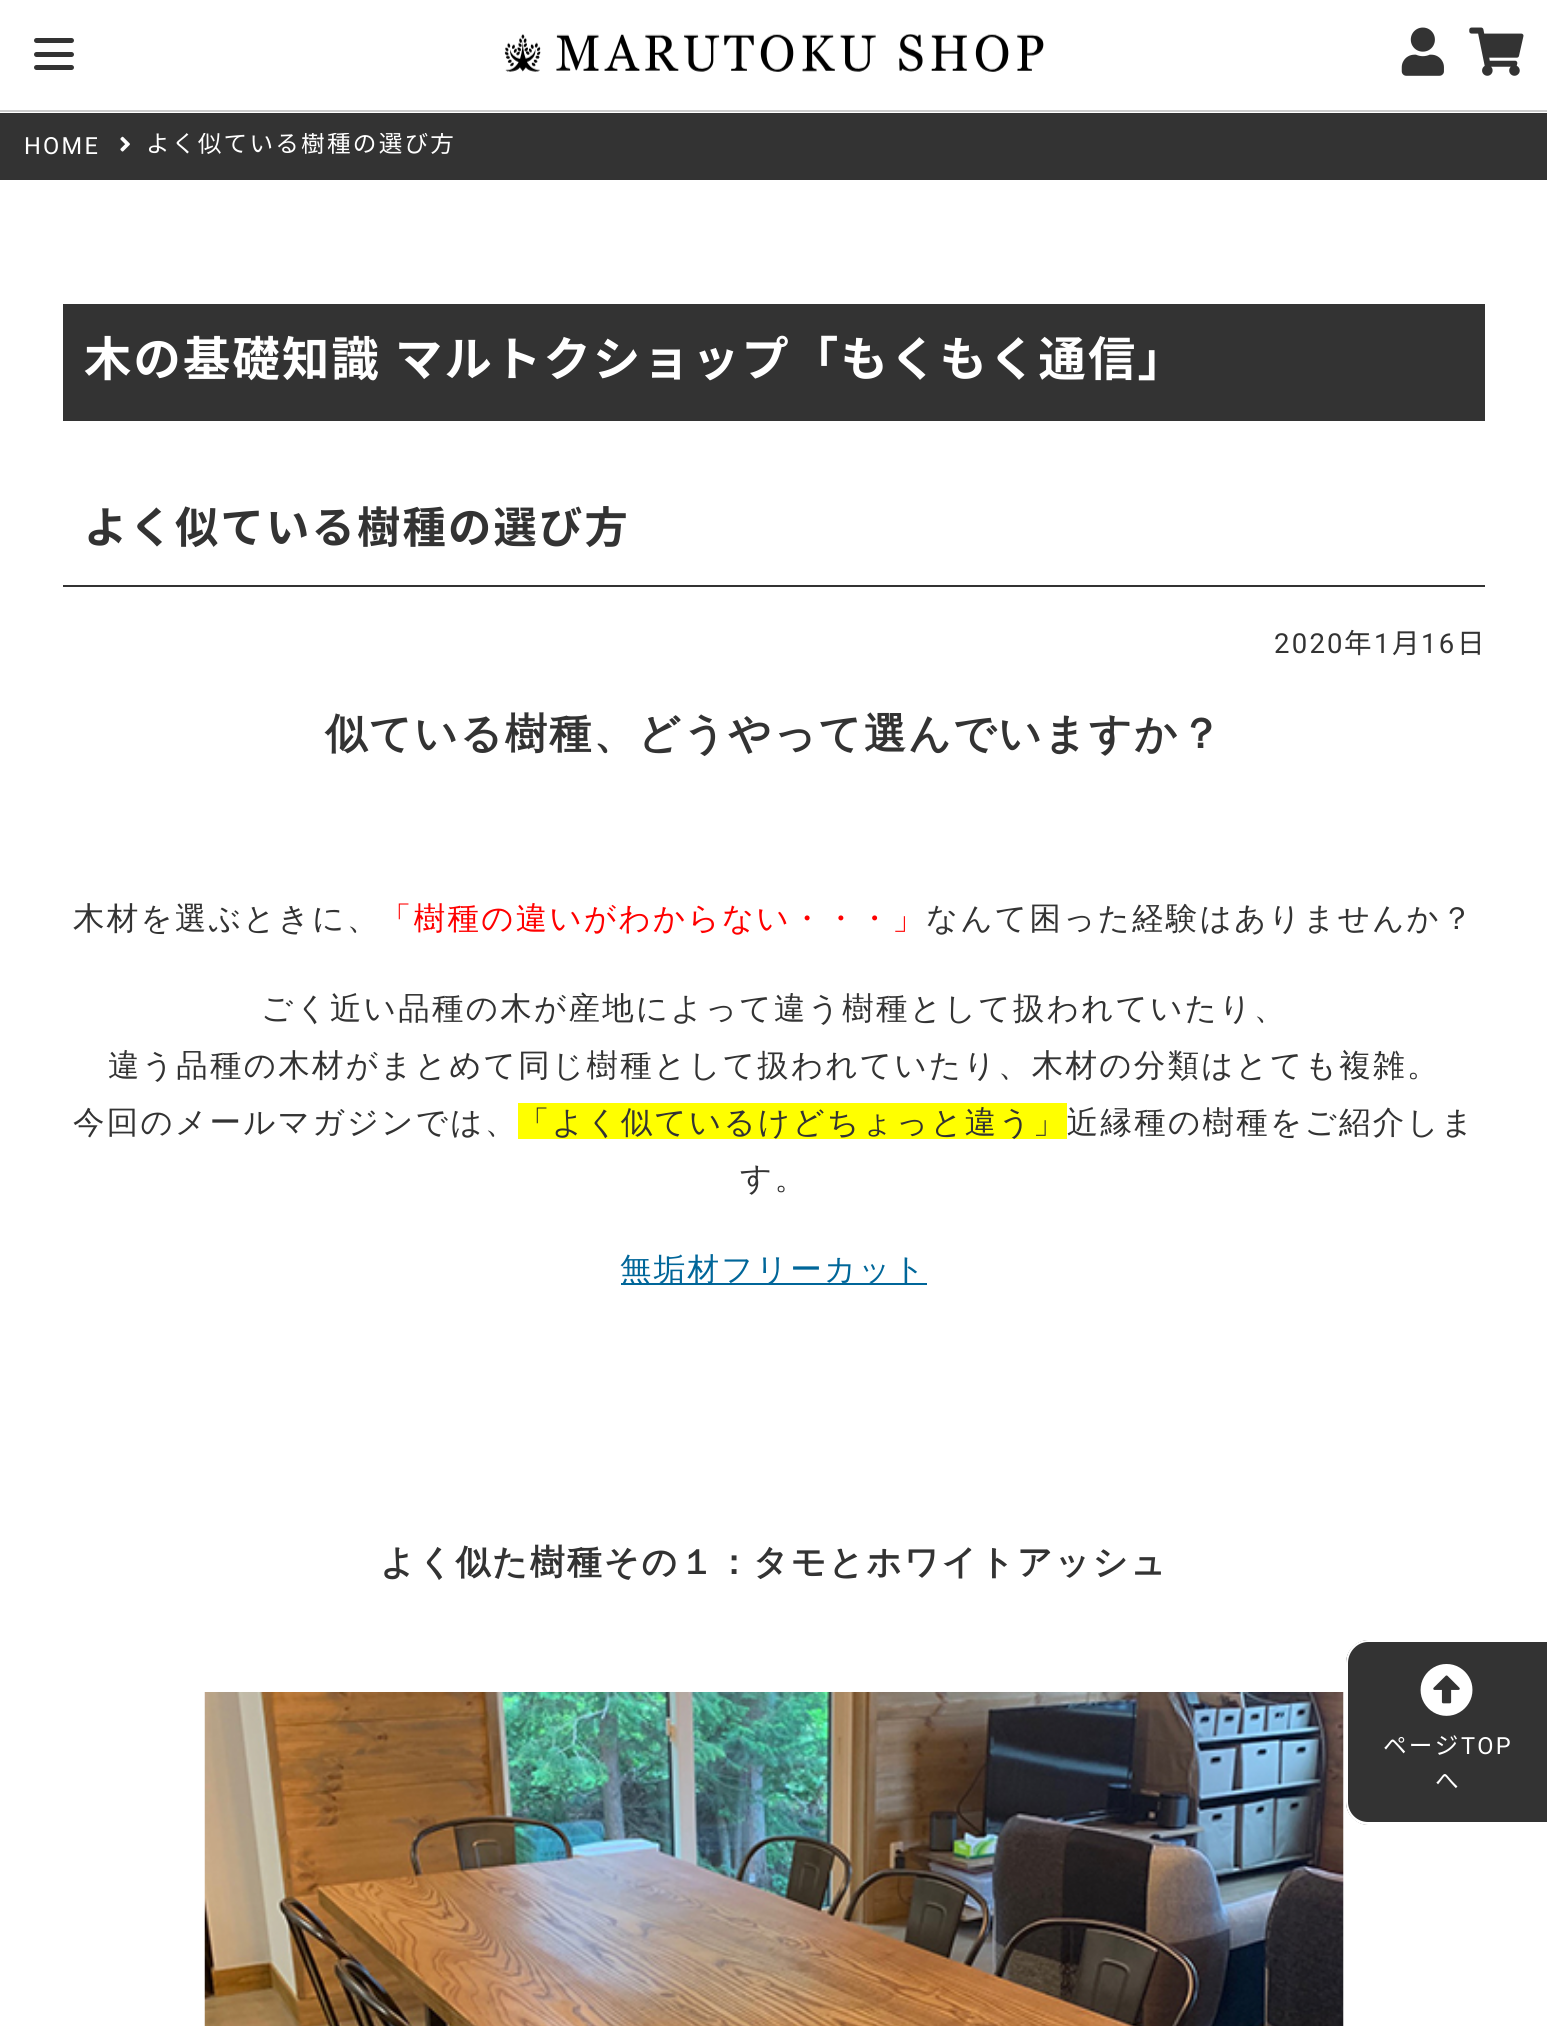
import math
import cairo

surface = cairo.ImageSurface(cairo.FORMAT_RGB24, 1547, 2026)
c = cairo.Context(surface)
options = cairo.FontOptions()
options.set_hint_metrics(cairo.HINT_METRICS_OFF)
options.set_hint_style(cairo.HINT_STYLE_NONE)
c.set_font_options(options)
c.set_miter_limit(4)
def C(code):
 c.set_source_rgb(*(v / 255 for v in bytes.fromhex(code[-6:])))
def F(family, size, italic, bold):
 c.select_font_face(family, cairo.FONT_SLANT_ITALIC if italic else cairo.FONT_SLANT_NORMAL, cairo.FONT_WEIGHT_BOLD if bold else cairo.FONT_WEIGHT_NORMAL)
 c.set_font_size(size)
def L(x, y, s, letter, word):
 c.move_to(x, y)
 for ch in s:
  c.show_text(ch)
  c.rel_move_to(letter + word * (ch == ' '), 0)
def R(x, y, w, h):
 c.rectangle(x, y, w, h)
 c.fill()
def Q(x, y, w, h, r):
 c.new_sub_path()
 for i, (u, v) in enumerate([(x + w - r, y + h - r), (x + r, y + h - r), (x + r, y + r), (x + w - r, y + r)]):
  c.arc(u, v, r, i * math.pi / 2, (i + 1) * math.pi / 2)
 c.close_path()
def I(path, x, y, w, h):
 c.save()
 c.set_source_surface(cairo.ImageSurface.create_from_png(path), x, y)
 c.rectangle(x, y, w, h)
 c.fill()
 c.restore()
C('ffffff')
c.paint()
C('cccccc')
R(0,110,1547,2)
C('333333')
Q(34,38,40,5,2.5)
c.fill()
Q(34,52,40,5,2.5)
c.fill()
Q(34,65,40,5,2.5)
c.fill()
I('1.png',504,34,540,38)
I('2.png',1401,27,43,49)
I('3.png',1469,27,55,49)
R(0,113,1547,67)
F('Roboto',23.6,0,0)
C('ffffff')
L(24,154,'HOME',2.25,0)
I('4.png',120,136,10,16)
c.save()
c.rectangle(25,133,432,27)
c.clip()
F('Noto Sans JP',23.6,0,0)
L(146,152,'よく似ている樹種の選び方',2.25,0)
c.restore()
C('333333')
R(63,304,1422,117)
F('Noto Sans JP',47.25,0,1)
C('ffffff')
L(84,376,'木の基礎知識 マルトクショップ「もくもく通信」',2.25,1)
C('333333')
R(63,585,1422,2)
F('Noto Sans JP',43.25,0,1)
L(84,543,'よく似ている樹種の選び方',2.25,0)
F('Roboto',27.5,0,0)
L(1274,653,'2020',2.25,0)
F('Noto Sans JP',27.5,0,0)
L(1344,653,'年',2.25,0)
F('Roboto',27.5,0,0)
L(1374,653,'1',2.25,0)
F('Noto Sans JP',27.5,0,0)
L(1392,653,'月',2.25,0)
F('Roboto',27.5,0,0)
L(1421,653,'16',2.25,0)
F('Noto Sans JP',27.5,0,0)
L(1457,653,'日',2.25,0)
F('WenQuanYi Zen Hei',42,0,1)
L(325,748,'似ている樹種、どうやって選んでいますか？',2.25,0)
F('WenQuanYi Zen Hei Medium',31.5,0,0)
L(73,929,'木材を選ぶときに、',2.25,0)
C('ff0000')
L(380,929,'「樹種の違いがわからない・・・」',2.25,0)
C('333333')
L(926,929,'なんて困った経験はありませんか？',2.25,0)
L(261,1019,'ごく近い品種の木が産地によって違う樹種として扱われていたり、',2.25,0)
L(108,1076,'違う品種の木材がまとめて同じ樹種として扱われていたり、木材の分類はとても複雑。',2.25,0)
L(73,1133,'今回のメールマガジンでは、',2.25,0)
C('ffff00')
R(518,1103,549,36)
C('333333')
L(518,1133,'「よく似ているけどちょっと違う」近縁種の樹種をご紹介しま',2.25,0)
L(740,1189,'す。',2.25,0)
C('006699')
R(621,1283,306,2)
L(620,1280,'無垢材フリーカット',2.25,0)
F('WenQuanYi Zen Hei',34.65,0,1)
C('333333')
L(380,1574,'よく似た樹種その１：タモとホワイトアッシュ',2.25,0)
I('5.png',204,1692,1140,334)
c.new_path()
c.move_to(1369,1640)
c.line_to(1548,1640)
c.line_to(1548,1825)
c.line_to(1369,1825)
c.curve_to(1356.5,1825,1346,1814.5,1346,1802)
c.line_to(1346,1663)
c.curve_to(1346,1650.5,1356.5,1640,1369,1640)
c.close_path()
c.fill()
C('ffffff')
c.set_fill_rule(cairo.FILL_RULE_EVEN_ODD)
c.new_path()
c.move_to(1368,1640)
c.line_to(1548,1640)
c.line_to(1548,1825)
c.line_to(1368,1825)
c.curve_to(1356,1825,1346,1815,1346,1802)
c.line_to(1346,1663)
c.curve_to(1346,1650,1356,1640,1368,1640)
c.close_path()
c.move_to(1368,1642)
c.line_to(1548,1642)
c.line_to(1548,1822)
c.line_to(1368,1822)
c.curve_to(1357,1822,1348,1813,1348,1802)
c.line_to(1348,1663)
c.curve_to(1348,1652,1357,1642,1368,1642)
c.close_path()
c.fill()
I('6.png',1420,1664,53,52)
F('Noto Sans JP',23.6,0,0)
L(1383,1754,'ページ',2.25,0)
F('Roboto',23.6,0,0)
L(1461,1754,'TOP',2.25,0)
F('Noto Sans JP',23.6,0,0)
L(1435,1789,'へ',2.25,0)
surface.write_to_png('o.png')
